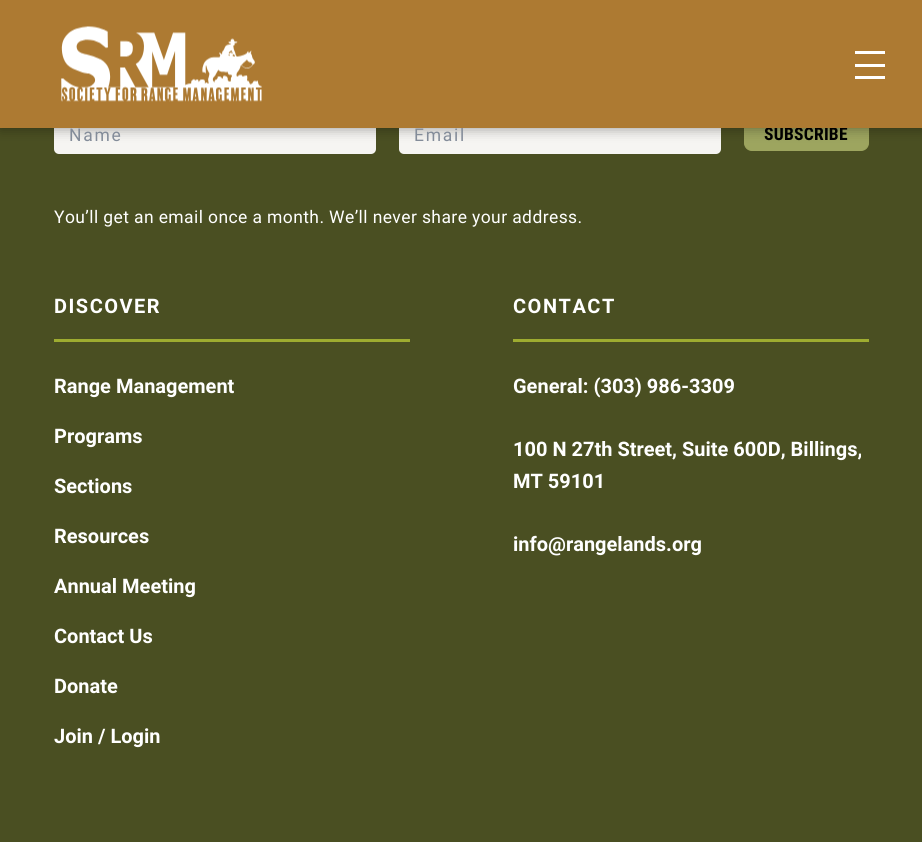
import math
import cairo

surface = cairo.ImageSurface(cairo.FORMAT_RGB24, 922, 842)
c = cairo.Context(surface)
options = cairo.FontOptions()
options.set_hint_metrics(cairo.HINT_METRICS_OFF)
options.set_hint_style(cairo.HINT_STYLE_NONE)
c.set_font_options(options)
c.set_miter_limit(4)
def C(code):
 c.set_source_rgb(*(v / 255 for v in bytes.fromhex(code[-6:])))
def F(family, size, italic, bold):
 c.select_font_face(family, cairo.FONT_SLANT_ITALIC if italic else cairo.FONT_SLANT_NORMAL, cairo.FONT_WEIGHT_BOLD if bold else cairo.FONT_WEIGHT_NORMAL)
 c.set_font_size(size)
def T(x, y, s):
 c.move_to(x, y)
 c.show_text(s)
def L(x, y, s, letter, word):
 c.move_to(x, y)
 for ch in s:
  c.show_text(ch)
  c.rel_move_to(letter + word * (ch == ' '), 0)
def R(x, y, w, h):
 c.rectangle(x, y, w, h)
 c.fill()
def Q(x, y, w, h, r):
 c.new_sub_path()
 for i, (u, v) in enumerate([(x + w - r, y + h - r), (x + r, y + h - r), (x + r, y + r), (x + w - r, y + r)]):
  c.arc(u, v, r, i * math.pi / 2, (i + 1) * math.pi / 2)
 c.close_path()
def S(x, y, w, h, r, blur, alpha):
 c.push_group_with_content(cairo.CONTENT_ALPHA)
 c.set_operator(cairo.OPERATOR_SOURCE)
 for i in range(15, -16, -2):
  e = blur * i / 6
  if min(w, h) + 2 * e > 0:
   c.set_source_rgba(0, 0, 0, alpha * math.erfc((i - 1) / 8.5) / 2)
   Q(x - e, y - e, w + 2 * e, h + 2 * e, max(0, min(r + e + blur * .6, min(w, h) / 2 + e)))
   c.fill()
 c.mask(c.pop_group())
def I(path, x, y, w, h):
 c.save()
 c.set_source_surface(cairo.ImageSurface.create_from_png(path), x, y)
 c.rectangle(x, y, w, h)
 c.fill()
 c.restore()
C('4a4f22')
c.paint()
C('f6f5f2')
Q(54,114,322,40,5)
c.fill()
Q(399,114,322,40,5)
c.fill()
C('9da55f')
Q(744.5,114.5,124,36,7.5)
c.fill_preserve()
c.set_line_width(1)
c.stroke()
C('000000')
S(0,3,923,127,0,6,.3)
F('Roboto',17.5,0,0)
C('838c99')
L(414,141,'Email',1.75,0)
F('Roboto Condensed',17.5,0,1)
C('000000')
L(764,140,'SUBSCRIBE',.25,0)
C('ad7a32')
R(0,0,922,128)
I('1.png',61,26,201,76)
C('ffffff')
R(855,51,30,3)
R(855,64,30,3)
R(855,76,30,3)
F('Roboto',17.5,0,0)
C('838c99')
L(69,141,'Name',1.75,0)
C('ffffff')
L(54,223,'You’ll get an email once a month. We’ll never share your address.',.4,0)
C('9eac30')
R(54,339,356,3)
F('Roboto',20,0,1)
C('ffffff')
L(54,313,'DISCOVER',1.5,0)
T(54,393,'Range Management')
T(54,443,'Programs')
T(54,493,'Sections')
T(54,543,'Resources')
T(54,593,'Annual Meeting')
T(54,643,'Contact Us')
T(54,693,'Donate')
T(54,743,'Join / Login')
C('9eac30')
R(513,339,356,3)
C('ffffff')
L(513,313,'CONTACT',1.5,0)
T(513,393,'General: (303) 986-3309')
T(513,456,'100 N 27th Street, Suite 600D, Billings,')
T(513,488,'MT 59101')
T(513,551,'info@rangelands.org')
surface.write_to_png('o.png')
